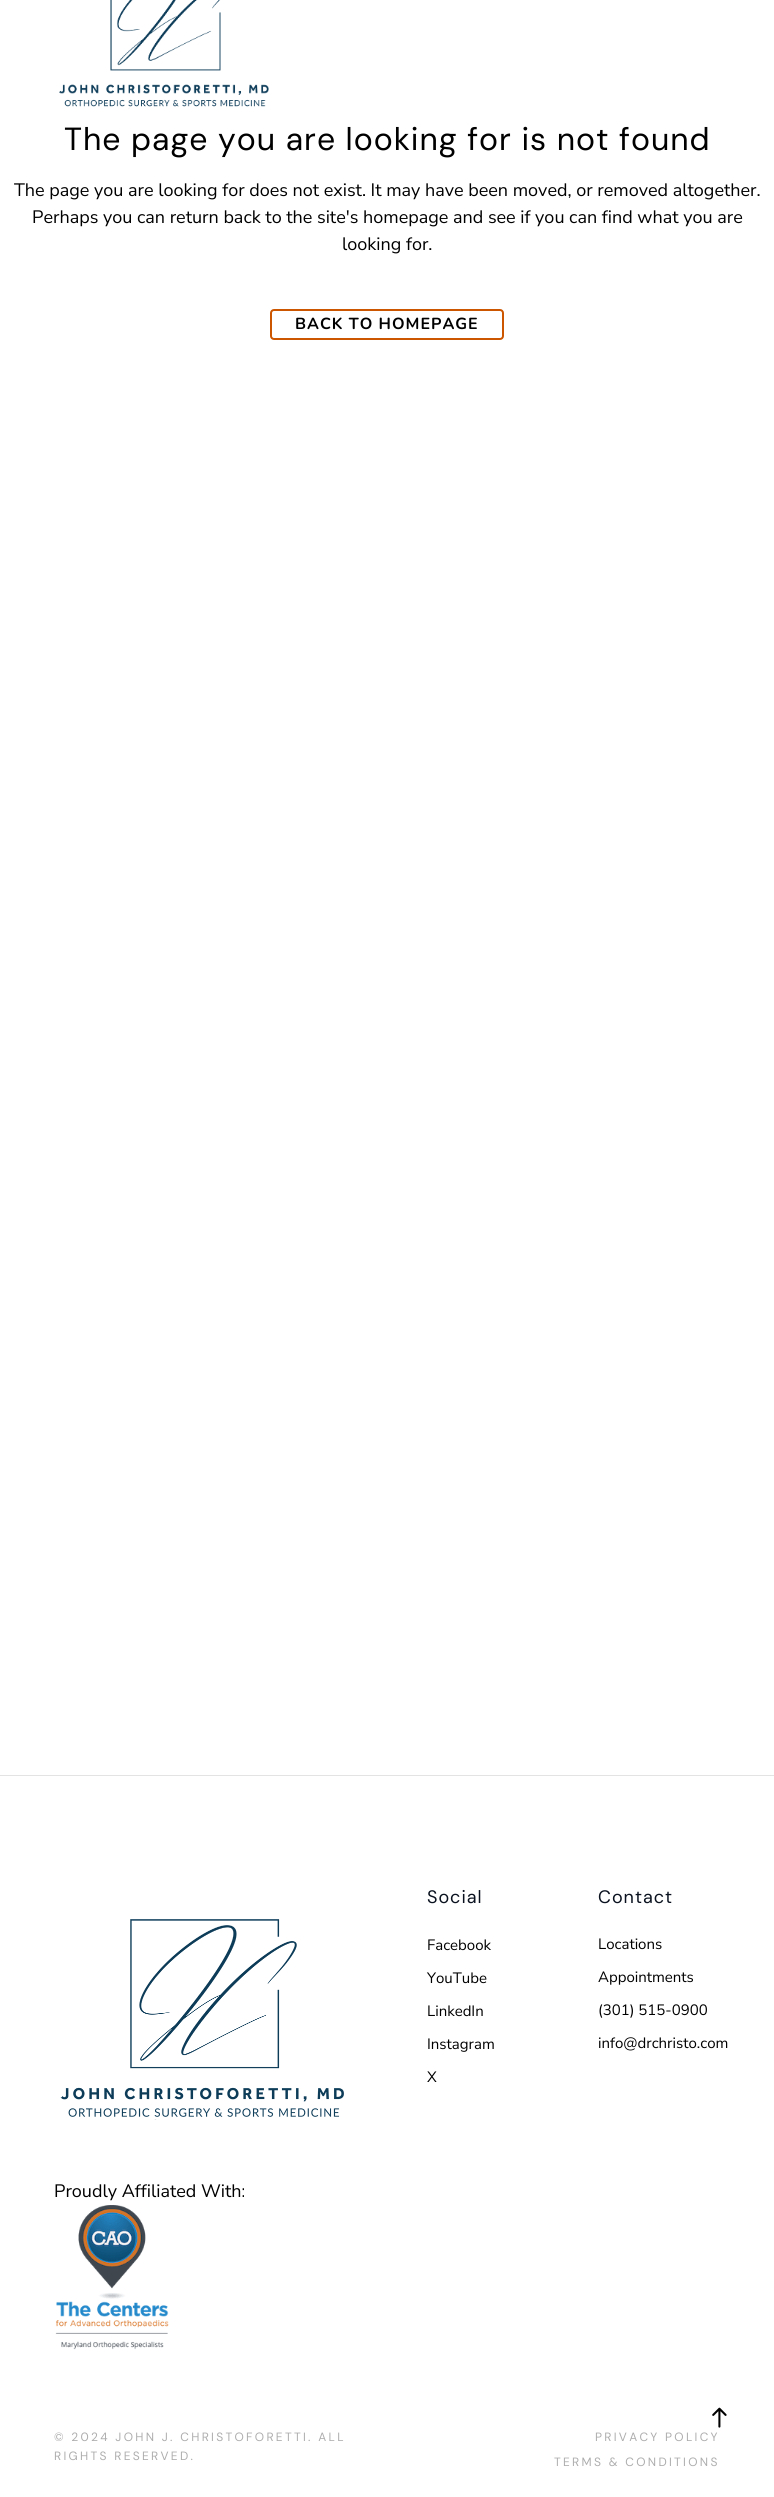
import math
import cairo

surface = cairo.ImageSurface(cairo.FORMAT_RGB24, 774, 2497)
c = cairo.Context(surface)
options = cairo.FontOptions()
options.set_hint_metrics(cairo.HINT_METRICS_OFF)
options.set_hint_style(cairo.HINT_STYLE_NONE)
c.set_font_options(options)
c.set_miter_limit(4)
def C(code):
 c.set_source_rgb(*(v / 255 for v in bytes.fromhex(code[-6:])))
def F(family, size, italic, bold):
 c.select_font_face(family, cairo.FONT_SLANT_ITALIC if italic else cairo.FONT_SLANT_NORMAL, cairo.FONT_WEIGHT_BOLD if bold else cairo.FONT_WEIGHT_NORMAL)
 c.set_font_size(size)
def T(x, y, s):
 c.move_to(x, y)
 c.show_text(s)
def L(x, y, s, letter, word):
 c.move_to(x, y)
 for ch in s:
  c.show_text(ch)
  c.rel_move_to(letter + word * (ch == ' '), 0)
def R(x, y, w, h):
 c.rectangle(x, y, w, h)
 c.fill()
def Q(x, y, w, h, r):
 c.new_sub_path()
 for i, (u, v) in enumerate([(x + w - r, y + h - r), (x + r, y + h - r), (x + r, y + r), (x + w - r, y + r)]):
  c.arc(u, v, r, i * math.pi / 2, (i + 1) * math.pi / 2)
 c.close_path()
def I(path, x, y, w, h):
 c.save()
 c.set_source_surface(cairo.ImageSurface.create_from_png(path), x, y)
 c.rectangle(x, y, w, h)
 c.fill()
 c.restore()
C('ffffff')
c.paint()
I('1.png',59,0,210,109)
F('DM Sans',32,0,0)
C('000000')
L(64,150,'The page you are looking for is not found',1,0)
F('Nunito Sans ExtraLight',18,0,0)
T(14,196,'The page you are looking for does not exist. It may have been moved, or removed altogether.')
T(32,223,'Perhaps you can return back to the site\'s homepage and see if you can find what you are')
T(342,250,'looking for.')
Q(271,310,232,29,3)
C('cc5500')
c.stroke()
F('Nunito',16,0,1)
C('000000')
L(295,329,'BACK TO HOMEPAGE',1,0)
C('e3e3e3')
R(0,1775,774,1)
F('DM Sans',18,0,0)
C('0a121f')
L(427,1903,'Social',1,0)
F('Nunito Sans ExtraLight',15,0,0)
C('000000')
T(427,1950,'Facebook')
T(427,1983,'YouTube')
T(427,2016,'LinkedIn')
T(427,2049,'Instagram')
T(427,2082,'X')
F('DM Sans',18,0,0)
C('0a121f')
L(598,1903,'Contact',1,0)
F('Nunito Sans ExtraLight',15,0,0)
C('000000')
T(598,1949,'Locations')
T(598,1982,'Appointments')
T(598,2015,'(301) 515-0900')
T(598,2048,'info@drchristo.com')
I('2.png',60,1919,284,201)
F('Nunito Sans ExtraLight',18,0,0)
T(54,2197,'Proudly Affiliated With:')
I('3.png',55,2205,114,145)
F('DM Sans',12,0,0)
C('adadad')
L(54,2441,'© 2024 JOHN J. CHRISTOFORETTI. ALL',2.3,0)
L(54,2460,'RIGHTS RESERVED.',2.3,0)
L(595,2441,'PRIVACY POLICY',2.3,0)
L(554,2466,'TERMS & CONDITIONS',2.3,0)
I('4.png',712,2407,15,21)
surface.write_to_png('o.png')
